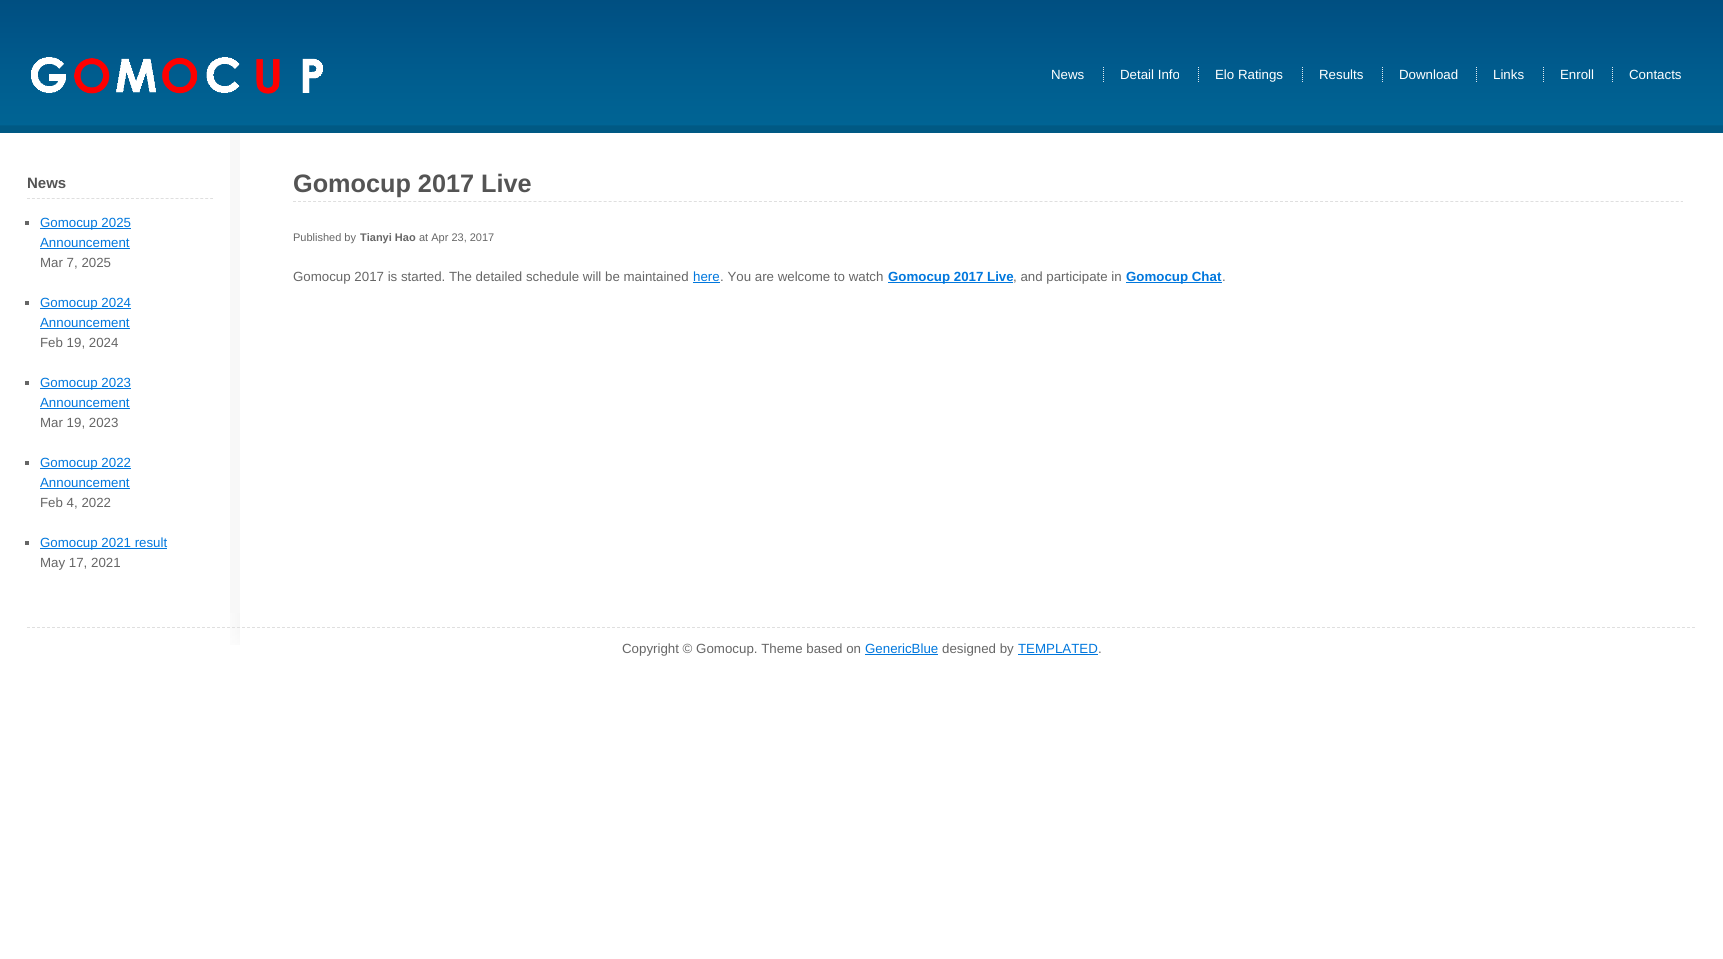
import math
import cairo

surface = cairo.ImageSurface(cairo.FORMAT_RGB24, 1723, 959)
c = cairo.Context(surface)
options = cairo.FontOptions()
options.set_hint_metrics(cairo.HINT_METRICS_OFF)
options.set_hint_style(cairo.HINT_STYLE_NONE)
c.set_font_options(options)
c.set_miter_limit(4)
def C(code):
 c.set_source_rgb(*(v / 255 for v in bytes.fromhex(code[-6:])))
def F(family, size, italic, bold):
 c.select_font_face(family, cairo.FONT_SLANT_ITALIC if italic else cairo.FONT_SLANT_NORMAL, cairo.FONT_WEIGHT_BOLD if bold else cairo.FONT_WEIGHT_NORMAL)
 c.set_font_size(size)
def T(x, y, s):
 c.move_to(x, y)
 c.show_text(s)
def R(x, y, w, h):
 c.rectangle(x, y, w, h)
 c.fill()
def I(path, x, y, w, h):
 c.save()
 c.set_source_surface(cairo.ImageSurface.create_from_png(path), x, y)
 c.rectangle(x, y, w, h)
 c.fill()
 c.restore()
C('ffffff')
c.paint()
I('1.png',0,0,1723,133)
I('2.png',31,57,292,37)
F('Liberation Sans',13.3,0,0)
C('ffffff')
T(1051,79,'News')
T(1120,79,'Detail Info')
c.new_path()
c.move_to(1103.5,67)
c.line_to(1103.5,82)
C('e0e8ef')
c.set_line_width(1)
c.set_dash([1,1])
c.stroke()
C('ffffff')
T(1215,79,'Elo Ratings')
c.new_path()
c.move_to(1198.5,67)
c.line_to(1198.5,82)
C('e0e8ef')
c.stroke()
C('ffffff')
T(1319,79,'Results')
c.new_path()
c.move_to(1302.5,67)
c.line_to(1302.5,82)
C('e0e8ef')
c.stroke()
C('ffffff')
T(1399,79,'Download')
c.new_path()
c.move_to(1382.5,67)
c.line_to(1382.5,82)
C('e0e8ef')
c.stroke()
C('ffffff')
T(1493,79,'Links')
c.new_path()
c.move_to(1476.5,67)
c.line_to(1476.5,82)
C('e0e8ef')
c.stroke()
C('ffffff')
T(1560,79,'Enroll')
c.new_path()
c.move_to(1543.5,67)
c.line_to(1543.5,82)
C('e0e8ef')
c.stroke()
C('ffffff')
T(1629,79,'Contacts')
c.new_path()
c.move_to(1612.5,67)
c.line_to(1612.5,82)
C('e0e8ef')
c.stroke()
C('f8f8f8')
R(230,133,10,480)
c.new_path()
c.move_to(27,198.5)
c.line_to(213,198.5)
C('dfdfdf')
c.set_dash([3,1.95])
c.stroke()
F('Liberation Sans',15,0,1)
C('545454')
T(27,188,'News')
C('666666')
R(25,221,4,4)
C('0077dd')
R(40,228,91,1)
F('Liberation Sans',13.3,0,0)
T(40,227,'Gomocup 2025')
T(40,247,'Announcement')
R(40,248,90,1)
C('666666')
T(40,267,'Mar 7, 2025')
R(25,301,4,4)
C('0077dd')
R(40,308,91,1)
T(40,307,'Gomocup 2024')
T(40,327,'Announcement')
R(40,328,90,1)
C('666666')
T(40,347,'Feb 19, 2024')
R(25,381,4,4)
C('0077dd')
R(40,388,91,1)
T(40,387,'Gomocup 2023')
T(40,407,'Announcement')
R(40,408,90,1)
C('666666')
T(40,427,'Mar 19, 2023')
R(25,461,4,4)
C('0077dd')
R(40,468,91,1)
T(40,467,'Gomocup 2022')
T(40,487,'Announcement')
R(40,488,90,1)
C('666666')
T(40,507,'Feb 4, 2022')
R(25,541,4,4)
C('0077dd')
R(40,548,127,1)
T(40,547,'Gomocup 2021 result')
C('666666')
T(40,567,'May 17, 2021')
I('3.png',230,613,10,32)
c.new_path()
c.move_to(293,201.5)
c.line_to(1683,201.5)
C('dfdfdf')
c.set_dash([3,2.01])
c.stroke()
F('Liberation Sans',25.25,0,1)
C('545454')
T(293,192,'Gomocup 2017 Live')
F('Liberation Sans',11,0,0)
C('666666')
T(293,241,'Published by')
F('Liberation Sans',11,0,1)
T(360,241,'Tianyi Hao')
F('Liberation Sans',11,0,0)
T(419,241,'at Apr 23, 2017')
F('Liberation Sans',13.3,0,0)
T(293,281,'Gomocup 2017 is started. The detailed schedule will be maintained')
C('0077dd')
T(693,281,'here')
R(693,282,27,1)
C('666666')
T(720,281,'. You are welcome to watch')
C('0077dd')
R(888,282,125,1)
F('Liberation Sans',13.3,0,1)
T(888,281,'Gomocup 2017 Live')
F('Liberation Sans',13.3,0,0)
C('666666')
T(1013,281,', and participate in')
C('0077dd')
R(1126,282,96,1)
F('Liberation Sans',13.3,0,1)
T(1126,281,'Gomocup Chat')
F('Liberation Sans',13.3,0,0)
C('666666')
T(1222,281,'.')
c.new_path()
c.move_to(27,627.5)
c.line_to(1696,627.5)
C('dfdfdf')
c.set_dash([3,2])
c.stroke()
C('666666')
T(622,653,'Copyright © Gomocup. Theme based on')
C('0077dd')
T(865,653,'GenericBlue')
R(865,654,73,1)
C('666666')
T(942,653,'designed by')
C('0077dd')
T(1018,653,'TEMPLATED')
R(1018,654,80,1)
C('666666')
T(1098,653,'.')
surface.write_to_png('o.png')
